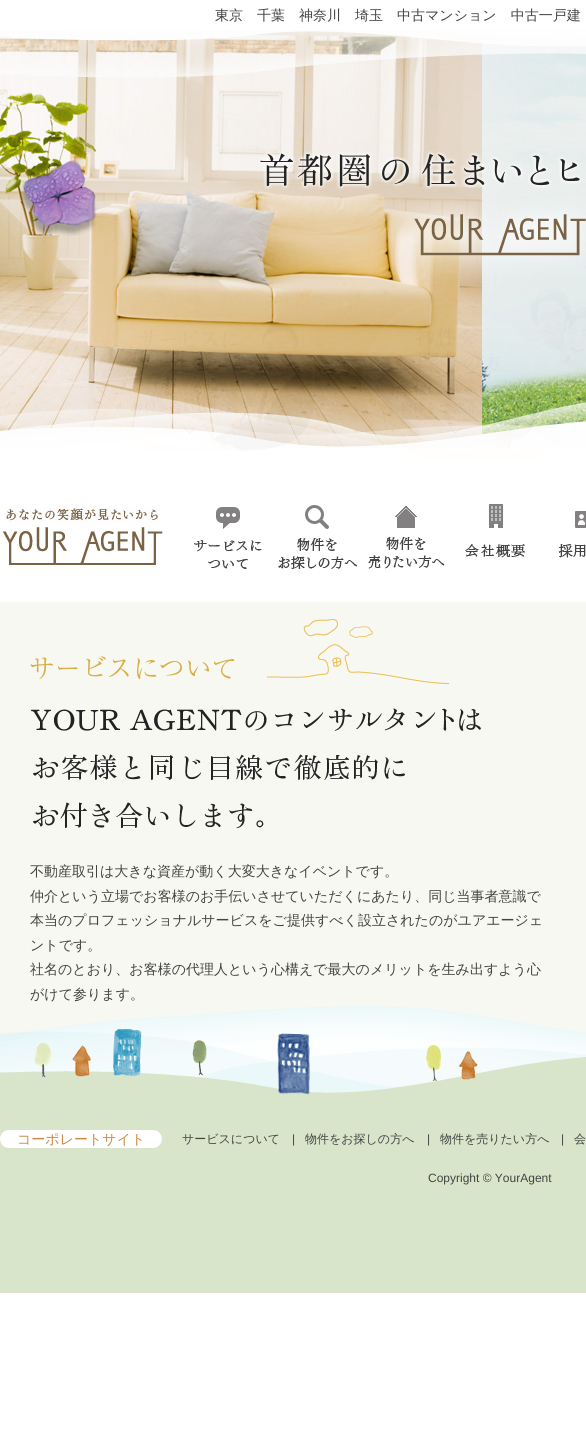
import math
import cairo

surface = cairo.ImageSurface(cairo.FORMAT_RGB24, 586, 1434)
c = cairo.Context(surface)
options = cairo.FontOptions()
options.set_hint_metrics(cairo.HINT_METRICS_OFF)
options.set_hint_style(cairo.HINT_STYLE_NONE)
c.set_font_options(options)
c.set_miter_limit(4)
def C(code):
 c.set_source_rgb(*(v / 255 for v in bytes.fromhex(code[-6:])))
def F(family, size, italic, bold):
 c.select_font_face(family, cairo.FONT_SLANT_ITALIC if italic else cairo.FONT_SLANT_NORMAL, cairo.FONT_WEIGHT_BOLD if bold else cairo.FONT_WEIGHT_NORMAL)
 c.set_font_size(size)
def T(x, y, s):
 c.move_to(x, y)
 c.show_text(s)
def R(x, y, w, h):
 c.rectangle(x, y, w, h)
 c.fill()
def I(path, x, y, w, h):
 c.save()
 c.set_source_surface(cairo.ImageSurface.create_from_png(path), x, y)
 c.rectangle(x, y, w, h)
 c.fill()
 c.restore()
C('ffffff')
c.paint()
F('WenQuanYi Zen Hei Medium',14,0,0)
C('434343')
T(215,20,'東京　千葉　神奈川　埼玉　中古マンション　中古一戸建')
I('1.png',0,30,586,418)
I('2.png',105,317,210,134)
I('3.png',361,289,225,169)
I('4.png',19,160,78,76)
I('5.png',3,508,160,57)
I('6.png',194,507,68,62)
I('7.png',278,505,79,64)
I('8.png',368,506,77,63)
I('9.png',465,504,60,54)
I('10.png',558,511,28,47)
C('f8f8f2')
R(0,602,586,404)
I('11.png',30,619,419,65)
I('12.png',31,708,450,121)
C('434343')
T(30,876,'不動産取引は大きな資産が動く大変大きなイベントです。')
T(30,901,'仲介という立場でお客様のお手伝いさせていただくにあたり、同じ当事者意識で')
T(30,925,'本当のプロフェッショナルサービスをご提供すべく設立されたのがユアエージェ')
T(30,950,'ントです。')
T(30,974,'社名のとおり、お客様の代理人という心構えで最大のメリットを生み出すよう心')
T(30,999,'がけて参ります。')
I('13.png',0,1006,586,287)
I('14.png',0,1130,162,18)
C('cc8946')
T(17,1144,'コーポレートサイト')
F('WenQuanYi Zen Hei Medium',12,0,0)
C('434343')
T(182,1143,'サービスについて')
F('Liberation Sans',12,0,0)
T(292,1143,'|')
F('WenQuanYi Zen Hei Medium',12,0,0)
T(305,1143,'物件をお探しの方へ')
F('Liberation Sans',12,0,0)
T(427,1143,'|')
F('WenQuanYi Zen Hei Medium',12,0,0)
T(440,1143,'物件を売りたい方へ')
F('Liberation Sans',12,0,0)
T(561,1143,'|')
F('WenQuanYi Zen Hei Medium',12,0,0)
T(574,1143,'会')
F('Liberation Sans',12,0,0)
T(428,1182,'Copyright © YourAgent')
surface.write_to_png('o.png')
